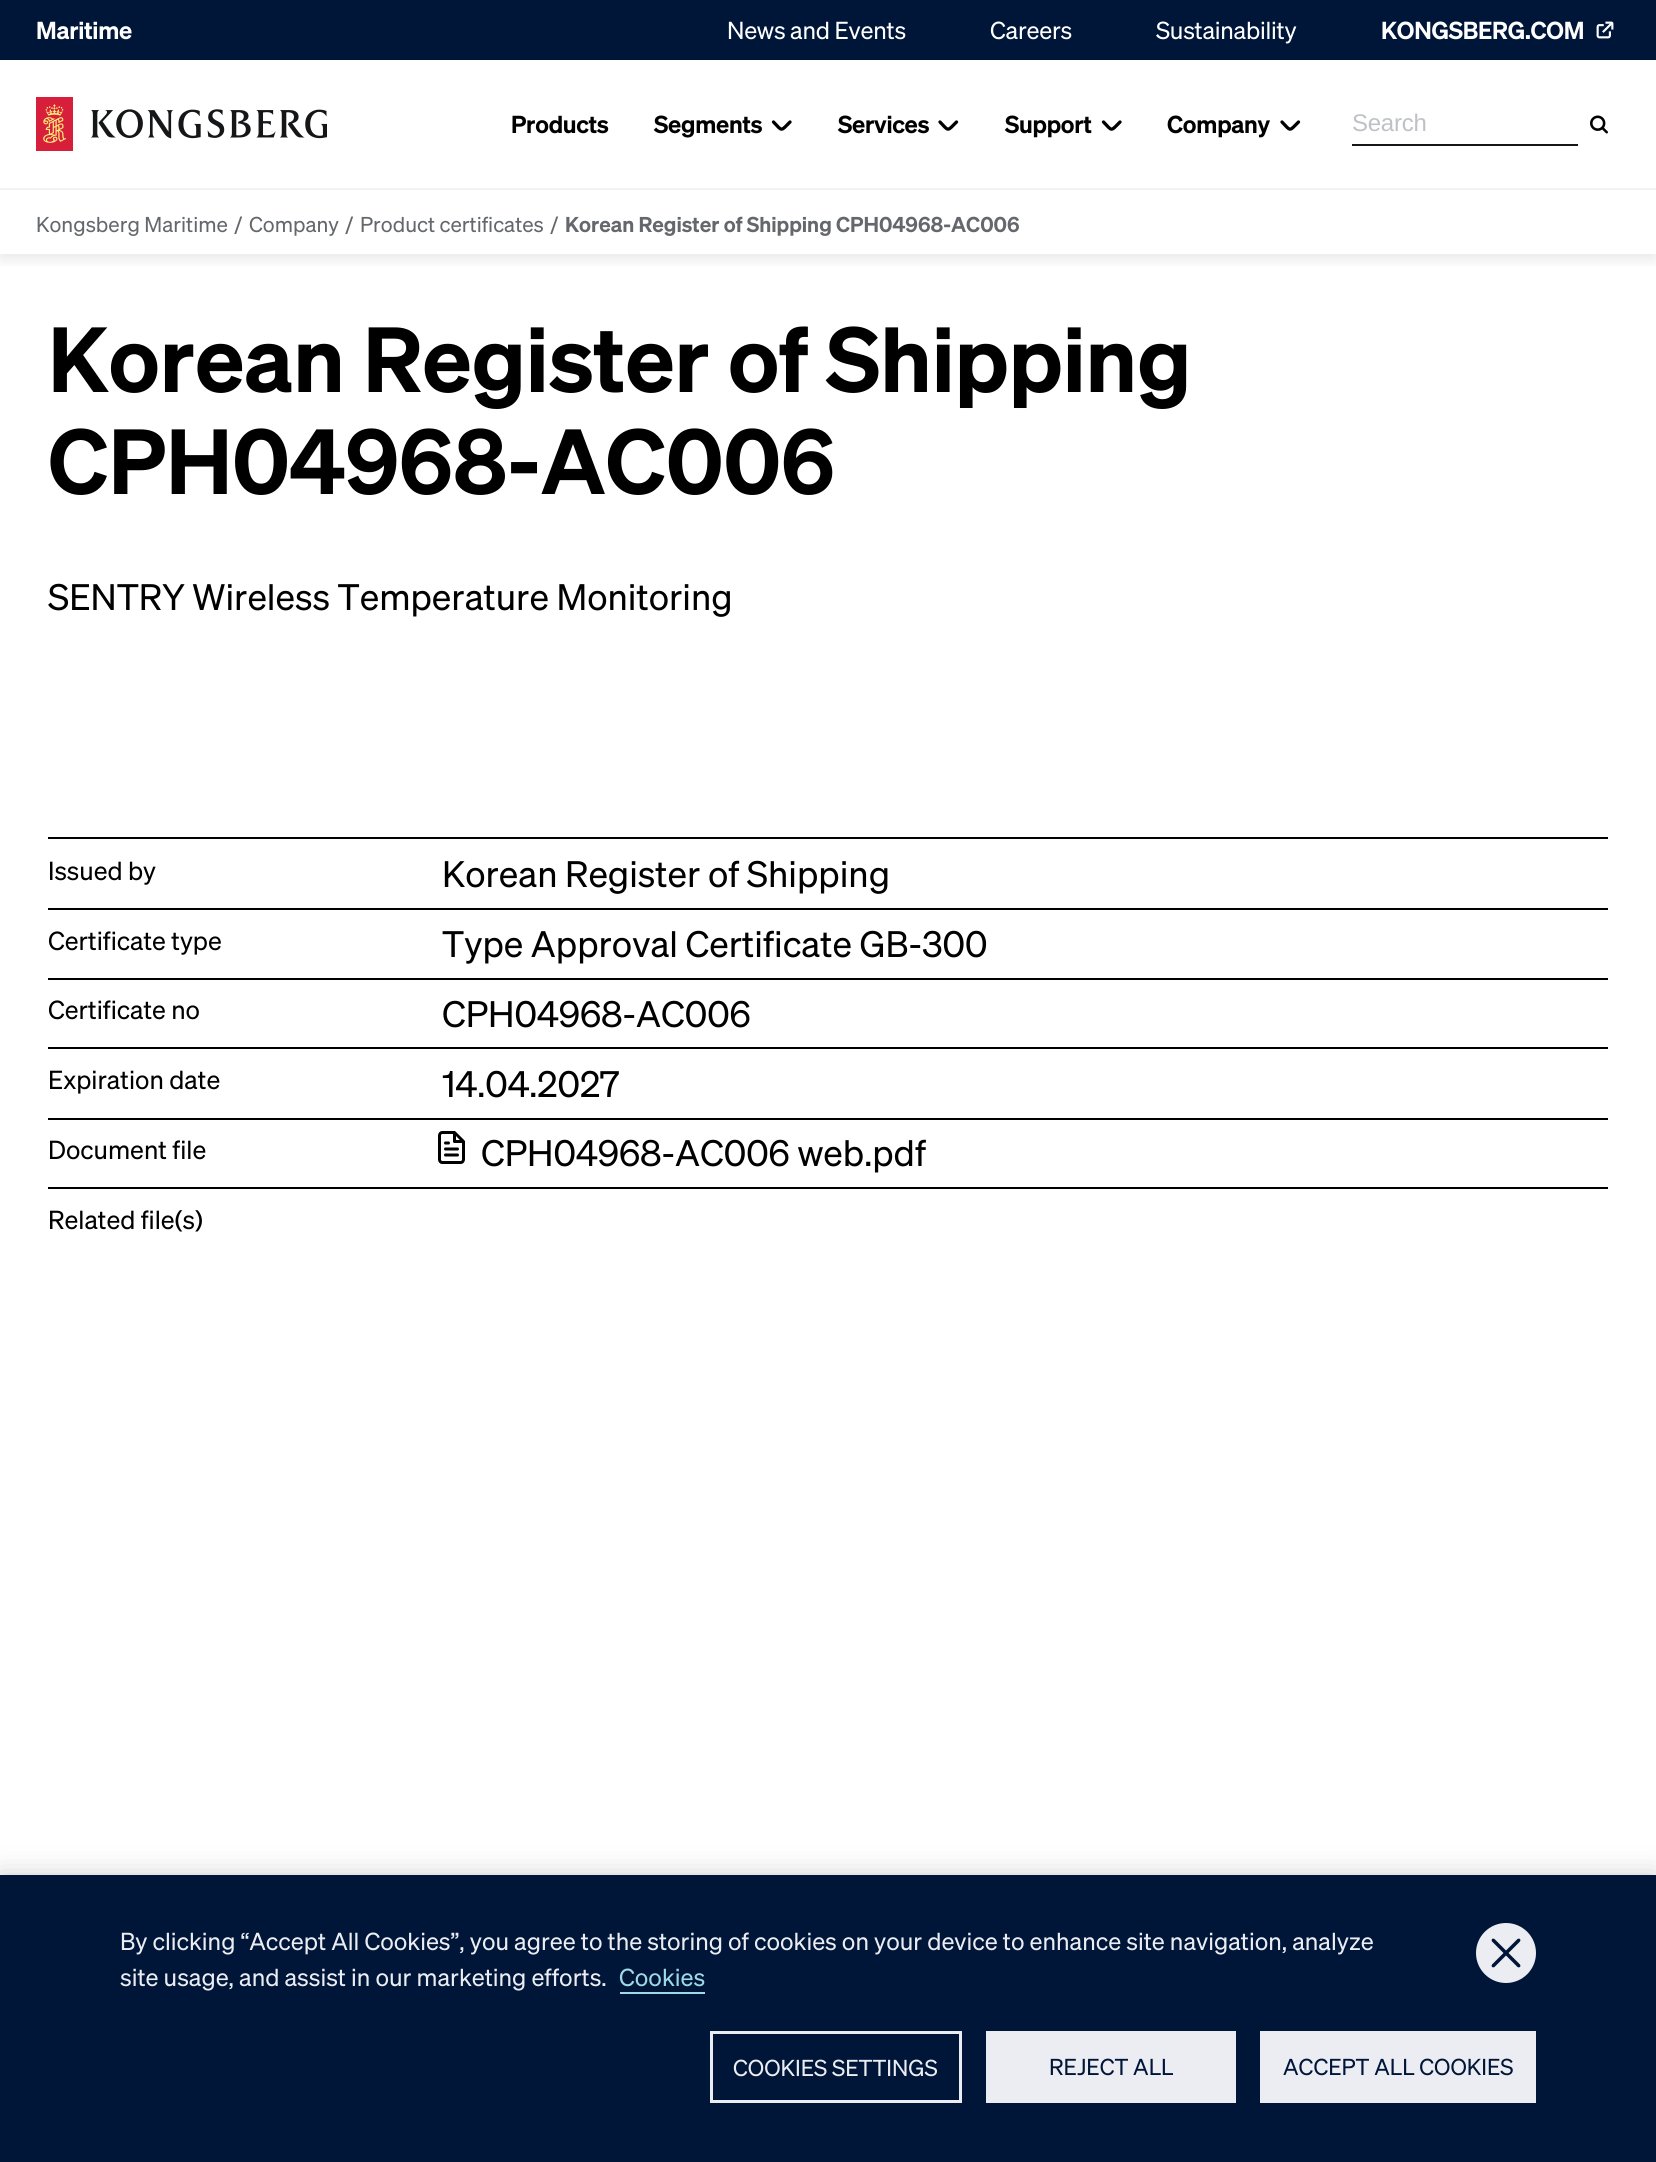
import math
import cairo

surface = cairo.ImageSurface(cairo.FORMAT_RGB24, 1656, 2162)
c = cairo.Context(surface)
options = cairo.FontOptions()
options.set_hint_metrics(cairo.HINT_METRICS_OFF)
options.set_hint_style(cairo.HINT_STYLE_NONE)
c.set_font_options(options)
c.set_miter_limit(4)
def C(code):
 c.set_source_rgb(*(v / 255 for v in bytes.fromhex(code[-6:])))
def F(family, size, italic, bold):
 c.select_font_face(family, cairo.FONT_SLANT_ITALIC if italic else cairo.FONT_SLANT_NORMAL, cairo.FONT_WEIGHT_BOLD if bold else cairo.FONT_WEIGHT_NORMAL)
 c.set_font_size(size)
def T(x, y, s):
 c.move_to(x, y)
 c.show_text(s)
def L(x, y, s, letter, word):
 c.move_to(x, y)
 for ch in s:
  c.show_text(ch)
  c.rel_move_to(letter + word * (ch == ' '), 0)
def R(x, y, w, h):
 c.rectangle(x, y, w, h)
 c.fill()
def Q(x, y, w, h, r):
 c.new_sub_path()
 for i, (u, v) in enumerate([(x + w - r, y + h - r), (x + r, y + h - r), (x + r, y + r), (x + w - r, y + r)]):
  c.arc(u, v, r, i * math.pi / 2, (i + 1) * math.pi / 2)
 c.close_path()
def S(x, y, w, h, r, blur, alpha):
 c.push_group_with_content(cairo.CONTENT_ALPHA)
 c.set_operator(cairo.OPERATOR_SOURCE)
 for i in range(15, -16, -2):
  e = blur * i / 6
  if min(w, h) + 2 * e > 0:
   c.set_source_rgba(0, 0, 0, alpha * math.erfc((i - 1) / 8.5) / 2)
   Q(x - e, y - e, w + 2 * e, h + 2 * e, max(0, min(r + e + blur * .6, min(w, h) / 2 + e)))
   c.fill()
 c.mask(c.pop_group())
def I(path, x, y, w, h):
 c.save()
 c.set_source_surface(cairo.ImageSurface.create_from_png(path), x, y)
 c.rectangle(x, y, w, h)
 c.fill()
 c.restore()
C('ffffff')
c.paint()
c.save()
c.rectangle(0,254,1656,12)
c.clip()
C('000000')
S(0,6,1656,254,0,7.5,.09)
c.restore()
C('001639')
R(0,0,1656,60)
F('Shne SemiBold',24,0,0)
C('ffffff')
L(36,39,'Maritime',-.25,0)
F('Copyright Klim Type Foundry',24,0,0)
L(727,39,'News and Events',-.25,0)
L(990,39,'Careers',-.25,0)
L(1156,39,'Sustainability',-.25,0)
F('Shne SemiBold',24,0,0)
L(1381,39,'KONGSBERG.COM',-.25,0)
I('1.png',1596,21,18,18)
I('2.png',36,97,291,54)
C('000000')
L(511,133,'Products',-.25,0)
L(654,133,'Segments',-.25,0)
c.new_path()
c.move_to(773.5,122)
c.curve_to(782.5,131.5,780.5,131.5,790,122)
c.set_line_width(3.3)
c.set_line_cap(cairo.LINE_CAP_ROUND)
c.stroke()
L(838,133,'Services',-.25,0)
c.new_path()
c.move_to(940,122)
c.curve_to(949,131.5,947,131.5,956.5,122)
c.stroke()
L(1005,133,'Support',-.25,0)
c.new_path()
c.move_to(1103.5,122)
c.curve_to(1112.5,131.5,1110.5,131.5,1120,122)
c.stroke()
L(1167,133,'Company',-.25,0)
c.new_path()
c.move_to(1282,122)
c.curve_to(1291,131.5,1289,131.5,1298.5,122)
c.stroke()
C('151618')
R(1352,144,226,2)
F('Liberation Sans',24,0,0)
C('bec1c5')
L(1352,131,'Search',-.25,0)
I('3.png',1590,115,18,19)
C('ffffff')
R(0,253,1656,1)
C('f2f2f2')
R(0,188,1656,2)
F('Copyright Klim Type Foundry',21,0,0)
C('64686d')
T(36,232,'Kongsberg Maritime')
T(234,232,'/')
T(249,232,'Company')
T(345,232,'/')
T(360,232,'Product certificates')
T(550,232,'/')
F('Shne SemiBold',21,0,0)
T(565,232,'Korean Register of Shipping CPH04968-AC006')
F('Shne SemiBold',90,0,0)
C('000000')
T(48,392,'Korean Register of Shipping')
T(48,494,'CPH04968-AC006')
F('Copyright Klim Type Foundry',36,0,0)
T(48,610,'SENTRY Wireless Temperature Monitoring')
R(48,837,1560,2)
F('Copyright Klim Type Foundry',25.5,0,0)
T(48,880,'Issued by')
F('Copyright Klim Type Foundry',36,0,0)
T(442,887,'Korean Register of Shipping')
R(48,908,1560,2)
F('Copyright Klim Type Foundry',25.5,0,0)
T(48,950,'Certificate type')
F('Copyright Klim Type Foundry',36,0,0)
T(442,957,'Type Approval Certificate GB-300')
R(48,978,1560,2)
F('Copyright Klim Type Foundry',25.5,0,0)
T(48,1019,'Certificate no')
F('Copyright Klim Type Foundry',36,0,0)
T(442,1027,'CPH04968-AC006')
R(48,1047,1560,2)
F('Copyright Klim Type Foundry',25.5,0,0)
T(48,1089,'Expiration date')
F('Copyright Klim Type Foundry',36,0,0)
T(442,1097,'14.04.2027')
R(48,1118,1560,2)
F('Copyright Klim Type Foundry',25.5,0,0)
T(48,1159,'Document file')
I('4.png',438,1131,27,33)
F('Copyright Klim Type Foundry',36,0,0)
T(481,1166,'CPH04968-AC006 web.pdf')
R(48,1187,1560,2)
F('Copyright Klim Type Foundry',25.5,0,0)
T(48,1229,'Related file(s)')
C('000000')
S(0,1875,1656,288,0,13.5,.2)
C('001639')
R(0,1875,1656,287)
C('ecedf2')
c.arc(1506,1953,30,0,2 * math.pi)
c.fill()
C('001639')
c.new_path()
c.move_to(1520,1939)
c.curve_to(1520.5,1940,1520.5,1940.5,1520,1941.5)
c.line_to(1494.5,1967)
c.curve_to(1493.5,1967.5,1493,1967.5,1492,1967)
c.curve_to(1491.5,1966,1491.5,1965.5,1492,1964.5)
c.line_to(1517.5,1939)
c.curve_to(1518.5,1938.5,1519,1938.5,1520,1939)
c.close_path()
c.fill()
c.new_path()
c.move_to(1492,1939)
c.curve_to(1493,1938.5,1493.5,1938.5,1494.5,1939)
c.line_to(1520,1964.5)
c.curve_to(1520.5,1965.5,1520.5,1966,1520,1967)
c.curve_to(1519,1967.5,1518.5,1967.5,1517.5,1967)
c.line_to(1492,1941.5)
c.curve_to(1491.5,1940.5,1491.5,1940,1492,1939)
c.close_path()
c.fill()
F('Copyright Klim Type Foundry',24,0,0)
C('ecedf2')
T(120,1950,'By clicking “Accept All Cookies”, you agree to the storing of cookies on your device to enhance site navigation, analyze')
T(120,1986,'site usage, and assist in our marketing efforts.')
C('9edae6')
T(619,1986,'Cookies')
R(620,1992,85,2)
c.rectangle(711.5,2032.5,249,69)
C('ecedf2')
c.set_line_width(3)
c.set_line_cap(cairo.LINE_CAP_BUTT)
c.stroke()
F('Copyright Klim Type Foundry',22.5,0,0)
T(733,2076,'COOKIES SETTINGS')
R(986,2031,250,72)
C('001639')
T(1049,2075,'REJECT ALL')
C('ecedf2')
R(1260,2031,276,72)
C('001639')
T(1283,2075,'ACCEPT ALL COOKIES')
surface.write_to_png('o.png')
